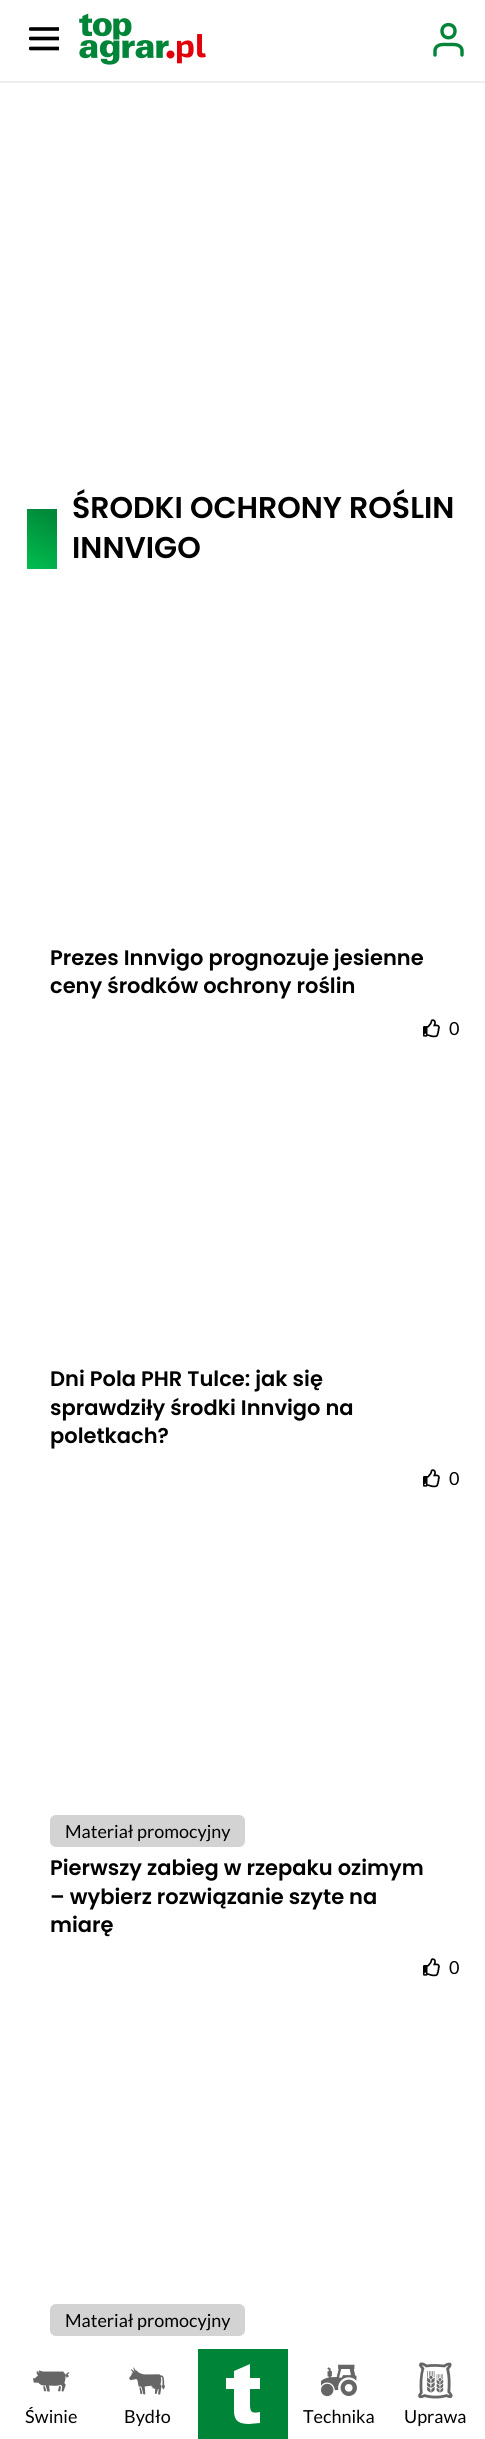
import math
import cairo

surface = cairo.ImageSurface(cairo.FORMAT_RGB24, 485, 2439)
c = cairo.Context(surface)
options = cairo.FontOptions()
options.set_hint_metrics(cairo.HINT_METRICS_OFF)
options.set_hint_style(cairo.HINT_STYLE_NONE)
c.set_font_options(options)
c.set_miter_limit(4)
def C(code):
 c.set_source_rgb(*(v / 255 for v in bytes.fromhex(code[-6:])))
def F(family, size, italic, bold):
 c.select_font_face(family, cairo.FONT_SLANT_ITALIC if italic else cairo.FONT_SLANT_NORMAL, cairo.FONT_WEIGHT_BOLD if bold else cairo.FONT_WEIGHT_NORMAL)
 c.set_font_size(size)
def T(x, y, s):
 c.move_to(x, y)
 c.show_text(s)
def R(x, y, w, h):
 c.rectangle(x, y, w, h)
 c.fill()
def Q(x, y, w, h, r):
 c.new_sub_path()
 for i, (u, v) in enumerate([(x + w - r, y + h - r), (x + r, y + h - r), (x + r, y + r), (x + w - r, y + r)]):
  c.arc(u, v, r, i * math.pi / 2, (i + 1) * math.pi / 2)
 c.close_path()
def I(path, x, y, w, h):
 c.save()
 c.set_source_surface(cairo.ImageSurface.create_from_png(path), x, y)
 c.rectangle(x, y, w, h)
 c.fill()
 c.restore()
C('ffffff')
c.paint()
C('eeeeee')
R(0,81,485,2)
c.save()
c.rectangle(29,23,30,30)
c.clip()
c.new_path()
c.move_to(30.5,29)
c.line_to(59,29)
c.move_to(30.5,38.5)
c.line_to(59,38.5)
c.move_to(30.5,48.5)
c.line_to(59,48.5)
C('000000')
c.set_line_width(3.6)
c.set_line_cap(cairo.LINE_CAP_ROUND)
c.stroke()
c.restore()
I('1.png',79,13,127,52)
c.new_path()
c.move_to(462,55)
c.line_to(462,50)
c.curve_to(460.5,43.5,453.5,44.5,448.5,44.5)
c.curve_to(443.5,44.5,436.5,43.5,435,50)
c.line_to(435,55)
c.move_to(455,31)
c.curve_to(455,40,442,40,442,31)
c.curve_to(442,22.5,455,22.5,455,31)
c.close_path()
C('008437')
c.set_line_width(3.4)
c.set_line_cap(cairo.LINE_CAP_ROUND)
c.set_line_join(cairo.LINE_JOIN_ROUND)
c.stroke()
gradient = cairo.LinearGradient(27,568,57,509)
gradient.add_color_stop_rgba(0,0.008,0.741,0.31,1)
gradient.add_color_stop_rgba(1,0,0.518,0.216,1)
c.set_source(gradient)
R(27,509,30,60)
F('Poppins SemiBold',30,0,0)
C('000000')
T(72,518,'ŚRODKI OCHRONY ROŚLIN')
T(72,558,'INNVIGO')
F('Poppins SemiBold',21,0,0)
T(50,965,'Prezes Innvigo prognozuje jesienne')
T(50,993,'ceny środków ochrony roślin')
I('2.png',423,1019,17,19)
F('Lato',18,0,0)
T(449,1035,'0')
F('Poppins SemiBold',21,0,0)
T(50,1386,'Dni Pola PHR Tulce: jak się')
T(50,1415,'sprawdziły środki Innvigo na')
T(50,1443,'poletkach?')
I('2.png',423,1469,17,19)
F('Lato',18,0,0)
T(449,1485,'0')
C('d3d3d3')
Q(50,1815,195,32,6)
c.fill()
C('000000')
T(65,1838,'Materiał promocyjny')
F('Poppins SemiBold',21,0,0)
T(50,1875,'Pierwszy zabieg w rzepaku ozimym')
T(50,1904,'– wybierz rozwiązanie szyte na')
T(50,1932,'miarę')
I('2.png',423,1958,17,19)
F('Lato',18,0,0)
T(449,1974,'0')
C('d3d3d3')
Q(50,2304,195,32,6)
c.fill()
C('000000')
T(65,2327,'Materiał promocyjny')
I('3.png',33,2370,37,22)
T(25,2423,'Świnie')
I('4.png',129,2367,36,28)
T(124,2423,'Bydło')
C('008437')
R(198,2349,90,90)
C('ffffff')
c.new_path()
c.move_to(250,2378)
c.line_to(250,2364)
c.line_to(234,2371)
c.line_to(234,2378)
c.line_to(226,2378)
c.line_to(226,2389)
c.line_to(234,2389)
c.line_to(234,2411)
c.curve_to(234,2419,237,2424,249,2424)
c.line_to(260,2423)
c.line_to(260,2412)
c.curve_to(250,2414,250,2411,250,2402)
c.line_to(250,2389)
c.line_to(260,2389)
c.line_to(260,2378)
c.close_path()
c.fill()
I('5.png',321,2364,36,33)
C('000000')
T(303,2423,'Technika')
I('6.png',418,2362,35,37)
T(404,2423,'Uprawa')
surface.write_to_png('o.png')
